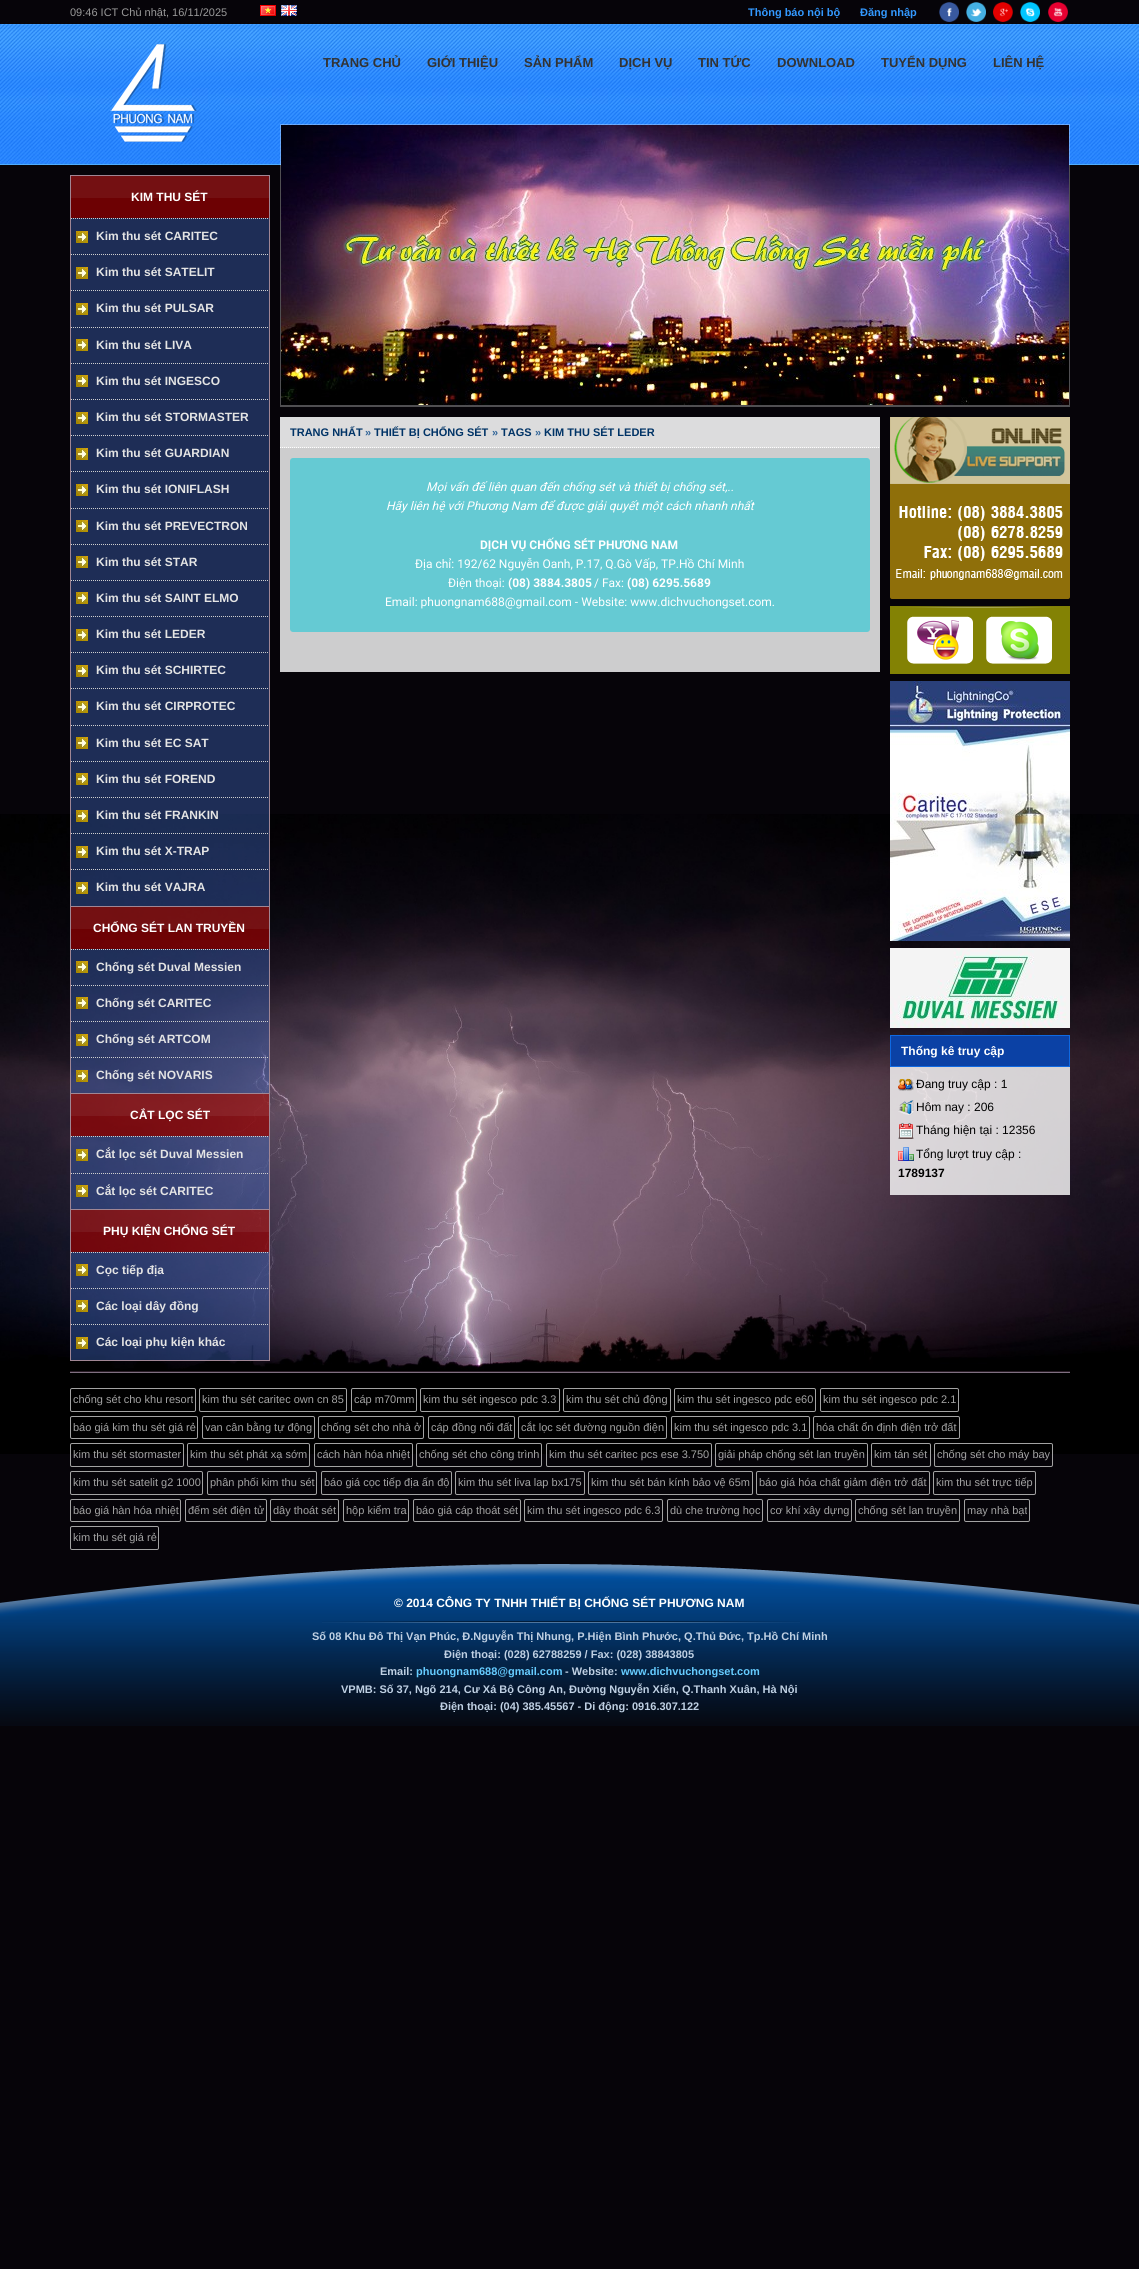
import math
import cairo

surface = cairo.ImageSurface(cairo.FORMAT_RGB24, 1139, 2269)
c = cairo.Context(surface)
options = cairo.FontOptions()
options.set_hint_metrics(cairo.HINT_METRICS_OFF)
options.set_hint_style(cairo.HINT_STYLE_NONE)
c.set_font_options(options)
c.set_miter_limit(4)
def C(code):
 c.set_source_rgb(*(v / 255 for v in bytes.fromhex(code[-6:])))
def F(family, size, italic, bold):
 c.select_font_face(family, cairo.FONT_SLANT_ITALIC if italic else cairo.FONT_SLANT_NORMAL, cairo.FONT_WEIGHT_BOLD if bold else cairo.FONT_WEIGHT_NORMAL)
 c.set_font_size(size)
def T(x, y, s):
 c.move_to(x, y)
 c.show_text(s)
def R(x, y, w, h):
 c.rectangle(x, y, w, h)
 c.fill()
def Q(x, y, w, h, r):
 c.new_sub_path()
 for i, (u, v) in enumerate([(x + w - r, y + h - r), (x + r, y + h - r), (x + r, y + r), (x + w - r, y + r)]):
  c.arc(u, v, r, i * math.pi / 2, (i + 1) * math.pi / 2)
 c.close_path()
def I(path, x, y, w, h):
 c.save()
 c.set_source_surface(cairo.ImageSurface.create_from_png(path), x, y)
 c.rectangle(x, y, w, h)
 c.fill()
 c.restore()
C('060409')
c.paint()
I('1.png',0,814,1139,640)
I('2.png',0,24,1139,141)
F('Liberation Sans',11,0,0)
C('999999')
T(70,16,'09:46 ICT Chủ nhật, 16/11/2025')
I('3.png',260,5,16,11)
I('4.png',281,5,16,11)
F('Liberation Sans',11,0,1)
C('3399ff')
T(748,16,'Thông báo nội bộ')
T(860,16,'Đăng nhập')
I('5.png',939,2,20,20)
I('6.png',966,2,20,20)
I('7.png',993,2,20,20)
I('8.png',1020,2,20,20)
I('9.png',1048,2,20,20)
I('10.png',110,44,87,98)
F('Liberation Sans',13,0,1)
C('333333')
T(323,67,'TRANG CHỦ')
T(427,67,'GIỚI THIỆU')
T(524,67,'SẢN PHẨM')
T(619,67,'DỊCH VỤ')
T(698,67,'TIN TỨC')
T(777,67,'DOWNLOAD')
T(881,67,'TUYỂN DỤNG')
T(993,67,'LIÊN HỆ')
C('a08694')
R(269,175,1,1186)
R(70,1360,200,1)
R(70,175,1,1186)
I('11.png',71,176,198,42)
R(71,175,198,1)
F('Liberation Sans',12,0,1)
C('ffffff')
T(131,201,'KIM THU SÉT')
c.set_source_rgba(0.255,0.42,0.792,0.4)
R(71,218,198,688)
I('12.png',76,231,12,12)
c.new_path()
c.move_to(71,218.5)
c.line_to(269,218.5)
C('cfcfcf')
c.set_line_width(1)
c.set_dash([1,1])
c.stroke()
C('e4e4e4')
T(96,240,'Kim thu sét CARITEC')
I('12.png',76,267,12,12)
c.new_path()
c.move_to(71,254.5)
c.line_to(269,254.5)
C('cfcfcf')
c.stroke()
C('e4e4e4')
T(96,276,'Kim thu sét SATELIT')
I('12.png',76,303,12,12)
c.new_path()
c.move_to(71,290.5)
c.line_to(269,290.5)
C('cfcfcf')
c.stroke()
C('e4e4e4')
T(96,312,'Kim thu sét PULSAR')
I('12.png',76,339,12,12)
c.new_path()
c.move_to(71,327.5)
c.line_to(269,327.5)
C('cfcfcf')
c.stroke()
C('e4e4e4')
T(96,349,'Kim thu sét LIVA')
I('12.png',76,375,12,12)
c.new_path()
c.move_to(71,363.5)
c.line_to(269,363.5)
C('cfcfcf')
c.stroke()
C('e4e4e4')
T(96,385,'Kim thu sét INGESCO')
I('12.png',76,412,12,12)
c.new_path()
c.move_to(71,399.5)
c.line_to(269,399.5)
C('cfcfcf')
c.stroke()
C('e4e4e4')
T(96,421,'Kim thu sét STORMASTER')
I('12.png',76,448,12,12)
c.new_path()
c.move_to(71,435.5)
c.line_to(269,435.5)
C('cfcfcf')
c.stroke()
C('e4e4e4')
T(96,457,'Kim thu sét GUARDIAN')
I('12.png',76,484,12,12)
c.new_path()
c.move_to(71,471.5)
c.line_to(269,471.5)
C('cfcfcf')
c.stroke()
C('e4e4e4')
T(96,493,'Kim thu sét IONIFLASH')
I('12.png',76,520,12,12)
c.new_path()
c.move_to(71,508.5)
c.line_to(269,508.5)
C('cfcfcf')
c.stroke()
C('e4e4e4')
T(96,530,'Kim thu sét PREVECTRON')
I('12.png',76,556,12,12)
c.new_path()
c.move_to(71,544.5)
c.line_to(269,544.5)
C('cfcfcf')
c.stroke()
C('e4e4e4')
T(96,566,'Kim thu sét STAR')
I('12.png',76,592,12,12)
c.new_path()
c.move_to(71,580.5)
c.line_to(269,580.5)
C('cfcfcf')
c.stroke()
C('e4e4e4')
T(96,602,'Kim thu sét SAINT ELMO')
I('12.png',76,629,12,12)
c.new_path()
c.move_to(71,616.5)
c.line_to(269,616.5)
C('cfcfcf')
c.stroke()
C('e4e4e4')
T(96,638,'Kim thu sét LEDER')
I('12.png',76,665,12,12)
c.new_path()
c.move_to(71,652.5)
c.line_to(269,652.5)
C('cfcfcf')
c.stroke()
C('e4e4e4')
T(96,674,'Kim thu sét SCHIRTEC')
I('12.png',76,701,12,12)
c.new_path()
c.move_to(71,688.5)
c.line_to(269,688.5)
C('cfcfcf')
c.stroke()
C('e4e4e4')
T(96,710,'Kim thu sét CIRPROTEC')
I('12.png',76,737,12,12)
c.new_path()
c.move_to(71,725.5)
c.line_to(269,725.5)
C('cfcfcf')
c.stroke()
C('e4e4e4')
T(96,747,'Kim thu sét EC SAT')
I('12.png',76,773,12,12)
c.new_path()
c.move_to(71,761.5)
c.line_to(269,761.5)
C('cfcfcf')
c.stroke()
C('e4e4e4')
T(96,783,'Kim thu sét FOREND')
I('12.png',76,810,12,12)
c.new_path()
c.move_to(71,797.5)
c.line_to(269,797.5)
C('cfcfcf')
c.stroke()
C('e4e4e4')
T(96,819,'Kim thu sét FRANKIN')
I('12.png',76,846,12,12)
c.new_path()
c.move_to(71,833.5)
c.line_to(269,833.5)
C('cfcfcf')
c.stroke()
C('e4e4e4')
T(96,855,'Kim thu sét X-TRAP')
I('12.png',76,882,12,12)
c.new_path()
c.move_to(71,869.5)
c.line_to(269,869.5)
C('cfcfcf')
c.stroke()
C('e4e4e4')
T(96,891,'Kim thu sét VAJRA')
I('13.png',71,907,198,42)
C('a08694')
R(71,906,198,1)
C('ffffff')
T(93,932,'CHỐNG SÉT LAN TRUYỀN')
c.set_source_rgba(0.255,0.42,0.792,0.4)
R(71,949,198,144)
I('12.png',76,961,12,12)
c.new_path()
c.move_to(71,949.5)
c.line_to(269,949.5)
C('cfcfcf')
c.stroke()
C('e4e4e4')
T(96,971,'Chống sét Duval Messien')
I('12.png',76,997,12,12)
c.new_path()
c.move_to(71,985.5)
c.line_to(269,985.5)
C('cfcfcf')
c.stroke()
C('e4e4e4')
T(96,1007,'Chống sét CARITEC')
I('12.png',76,1034,12,12)
c.new_path()
c.move_to(71,1021.5)
c.line_to(269,1021.5)
C('cfcfcf')
c.stroke()
C('e4e4e4')
T(96,1043,'Chống sét ARTCOM')
I('12.png',76,1070,12,12)
c.new_path()
c.move_to(71,1057.5)
c.line_to(269,1057.5)
C('cfcfcf')
c.stroke()
C('e4e4e4')
T(96,1079,'Chống sét NOVARIS')
I('14.png',71,1094,198,42)
C('a08694')
R(71,1093,198,1)
C('ffffff')
T(130,1119,'CẮT LỌC SÉT')
c.set_source_rgba(0.255,0.42,0.792,0.4)
R(71,1136,198,73)
I('12.png',76,1149,12,12)
c.new_path()
c.move_to(71,1136.5)
c.line_to(269,1136.5)
C('cfcfcf')
c.stroke()
C('e4e4e4')
T(96,1158,'Cắt lọc sét Duval Messien')
I('12.png',76,1185,12,12)
c.new_path()
c.move_to(71,1173.5)
c.line_to(269,1173.5)
C('cfcfcf')
c.stroke()
C('e4e4e4')
T(96,1195,'Cắt lọc sét CARITEC')
I('15.png',71,1210,198,42)
C('a08694')
R(71,1209,198,1)
C('ffffff')
T(103,1235,'PHỤ KIỆN CHỐNG SÉT')
c.set_source_rgba(0.255,0.42,0.792,0.4)
R(71,1252,198,108)
I('12.png',76,1264,12,12)
c.new_path()
c.move_to(71,1252.5)
c.line_to(269,1252.5)
C('cfcfcf')
c.stroke()
C('e4e4e4')
T(96,1274,'Cọc tiếp địa')
I('12.png',76,1300,12,12)
c.new_path()
c.move_to(71,1288.5)
c.line_to(269,1288.5)
C('cfcfcf')
c.stroke()
C('e4e4e4')
T(96,1310,'Các loại dây đồng')
I('12.png',76,1337,12,12)
c.new_path()
c.move_to(71,1324.5)
c.line_to(269,1324.5)
C('cfcfcf')
c.stroke()
C('e4e4e4')
T(96,1346,'Các loại phụ kiện khác')
c.set_source_rgba(1,1,1,0.3)
R(280,124,790,283)
I('16.png',281,125,788,280)
C('cdcdce')
R(280,448,600,224)
C('dcdcdd')
R(280,417,600,31)
c.new_path()
c.move_to(280,447.5)
c.line_to(880,447.5)
C('ffffff')
c.stroke()
F('Liberation Sans',11,0,1)
C('003366')
T(290,436,'TRANG NHẤT')
C('336699')
T(365,436,'»')
C('003366')
T(374,436,'THIẾT BỊ CHỐNG SÉT')
C('336699')
T(492,436,'»')
C('003366')
T(501,436,'TAGS')
C('336699')
T(535,436,'»')
C('003366')
T(544,436,'KIM THU SÉT LEDER')
C('65cad3')
Q(290,458,580,174,3)
c.fill()
F('Roboto',12,1,0)
C('ffffff')
T(426,491,'Mọi vấn đế liên quan đến chống sét và thiết bị chống sét,..')
T(386,510,'Hãy liên hệ với Phương Nam để được giải quyết một cách nhanh nhất')
F('Roboto',12,0,1)
T(480,549,'DỊCH VỤ CHỐNG SÉT PHƯƠNG NAM')
F('Roboto',12,0,0)
T(415,568,'Địa chỉ: 192/62 Nguyễn Oanh, P.17, Q.Gò Vấp, TP.Hồ Chí Minh')
T(448,587,'Điện thoại:')
F('Roboto',12,0,1)
T(508,587,'(08) 3884.3805')
F('Roboto',12,0,0)
T(594,587,'/ Fax:')
F('Roboto',12,0,1)
T(627,587,'(08) 6295.5689')
F('Roboto',12,0,0)
T(385,606,'Email: phuongnam688@gmail.com - Website: www.dichvuchongset.com.')
I('17.png',890,417,180,182)
I('18.png',890,606,180,68)
I('19.png',907,616,66,48)
I('20.png',986,616,66,48)
I('21.png',890,681,180,260)
I('22.png',890,948,180,80)
C('0b41a5')
c.rectangle(890.5,1035.5,179,31)
c.fill_preserve()
C('0f69e2')
c.set_dash([])
c.stroke()
F('Liberation Sans',12,0,1)
C('ffffff')
T(901,1055,'Thống kê truy cập')
c.set_source_rgba(1,1,1,0.8)
R(890,1067,180,128)
I('23.png',898,1078,16,13)
F('Liberation Sans',12,0,0)
C('000000')
T(916,1088,'Đang truy cập : 1')
I('24.png',898,1100,16,15)
T(916,1111,'Hôm nay : 206')
I('25.png',898,1123,16,16)
T(916,1134,'Tháng hiện tại : 12356')
I('26.png',898,1147,16,14)
T(916,1158,'Tổng lượt truy cập :')
F('Liberation Sans',12,0,1)
T(898,1177,'1789137')
C('291c26')
R(70,1371,1000,1)
C('7f6f80')
R(70,1372,1000,1)
Q(70.5,1388.5,125,23,1.5)
C('a3a3a3')
c.stroke()
F('Liberation Sans',11,0,0)
T(73,1403,'chống sét cho khu resort')
Q(199.5,1388.5,147,23,1.5)
c.stroke()
T(202,1403,'kim thu sét caritec own cn 85')
Q(351.5,1388.5,65,23,1.5)
c.stroke()
T(354,1403,'cáp m70mm')
Q(420.5,1388.5,139,23,1.5)
c.stroke()
T(423,1403,'kim thu sét ingesco pdc 3.3')
Q(563.5,1388.5,107,23,1.5)
c.stroke()
T(566,1403,'kim thu sét chủ động')
Q(674.5,1388.5,141,23,1.5)
c.stroke()
T(677,1403,'kim thu sét ingesco pdc e60')
Q(820.5,1388.5,138,23,1.5)
c.stroke()
T(823,1403,'kim thu sét ingesco pdc 2.1')
Q(70.5,1416.5,127,22,1.5)
c.stroke()
T(73,1431,'báo giá kim thu sét giá rẻ')
Q(202.5,1416.5,112,22,1.5)
c.stroke()
T(205,1431,'van cân bằng tự động')
Q(318.5,1416.5,105,22,1.5)
c.stroke()
T(321,1431,'chống sét cho nhà ở')
Q(428.5,1416.5,86,22,1.5)
c.stroke()
T(431,1431,'cáp đồng nối đất')
Q(518.5,1416.5,148,22,1.5)
c.stroke()
T(521,1431,'cắt lọc sét đường nguồn điện')
Q(671.5,1416.5,138,22,1.5)
c.stroke()
T(674,1431,'kim thu sét ingesco pdc 3.1')
Q(813.5,1416.5,146,22,1.5)
c.stroke()
T(816,1431,'hóa chất ổn định điện trở đất')
Q(70.5,1443.5,113,23,1.5)
c.stroke()
T(73,1458,'kim thu sét stormaster')
Q(187.5,1443.5,122,23,1.5)
c.stroke()
T(190,1458,'kim thu sét phát xạ sớm')
Q(314.5,1443.5,98,23,1.5)
c.stroke()
T(317,1458,'cách hàn hóa nhiệt')
Q(416.5,1443.5,125,23,1.5)
c.stroke()
T(419,1458,'chống sét cho công trình')
Q(546.5,1443.5,165,23,1.5)
c.stroke()
T(549,1458,'kim thu sét caritec pcs ese 3.750')
Q(715.5,1443.5,152,23,1.5)
c.stroke()
T(718,1458,'giải pháp chống sét lan truyền')
Q(871.5,1443.5,59,23,1.5)
c.stroke()
T(874,1458,'kim tán sét')
Q(934.5,1443.5,118,23,1.5)
c.stroke()
T(937,1458,'chống sét cho máy bay')
Q(70.5,1471.5,132,23,1.5)
c.stroke()
T(73,1486,'kim thu sét satelit g2 1000')
Q(207.5,1471.5,109,23,1.5)
c.stroke()
T(210,1486,'phân phối kim thu sét')
Q(321.5,1471.5,130,23,1.5)
c.stroke()
T(324,1486,'báo giá cọc tiếp địa ấn độ')
Q(455.5,1471.5,129,23,1.5)
c.stroke()
T(458,1486,'kim thu sét liva lap bx175')
Q(588.5,1471.5,164,23,1.5)
c.stroke()
T(591,1486,'kim thu sét bán kính bảo vệ 65m')
Q(756.5,1471.5,173,23,1.5)
c.stroke()
T(759,1486,'báo giá hóa chất giảm điện trở đất')
Q(933.5,1471.5,102,23,1.5)
c.stroke()
T(936,1486,'kim thu sét trực tiếp')
Q(70.5,1499.5,110,22,1.5)
c.stroke()
T(73,1514,'báo giá hàn hóa nhiệt')
Q(185.5,1499.5,81,22,1.5)
c.stroke()
T(188,1514,'đếm sét điện tử')
Q(270.5,1499.5,68,22,1.5)
c.stroke()
T(273,1514,'dây thoát sét')
Q(343.5,1499.5,65,22,1.5)
c.stroke()
T(346,1514,'hộp kiểm tra')
Q(413.5,1499.5,107,22,1.5)
c.stroke()
T(416,1514,'báo giá cáp thoát sét')
Q(524.5,1499.5,138,22,1.5)
c.stroke()
T(527,1514,'kim thu sét ingesco pdc 6.3')
Q(667.5,1499.5,95,22,1.5)
c.stroke()
T(670,1514,'dù che trường học')
Q(767.5,1499.5,84,22,1.5)
c.stroke()
T(770,1514,'cơ khí xây dựng')
Q(855.5,1499.5,104,22,1.5)
c.stroke()
T(858,1514,'chống sét lan truyền')
Q(964.5,1499.5,65,22,1.5)
c.stroke()
T(967,1514,'may nhà bạt')
Q(70.5,1526.5,88,23,1.5)
c.stroke()
T(73,1541,'kim thu sét giá rẻ')
I('27.png',0,1564,1139,162)
I('28.png',322,1621,478,2)
F('Liberation Sans',12,0,1)
C('ffffff')
T(394,1607,'© 2014 CÔNG TY TNHH THIẾT BỊ CHỐNG SÉT PHƯƠNG NAM')
F('Liberation Sans',11,0,1)
C('bfd0e3')
T(312,1640,'Số 08 Khu Đô Thị Vạn Phúc, Đ.Nguyễn Thị Nhung, P.Hiện Bình Phước, Q.Thủ Đức, Tp.Hồ Chí Minh')
T(444,1658,'Điện thoại: (028) 62788259 / Fax: (028) 38843805')
T(380,1675,'Email:')
C('66ccff')
T(416,1675,'phuongnam688@gmail.com')
C('bfd0e3')
T(565,1675,'- Website:')
C('66ccff')
T(621,1675,'www.dichvuchongset.com')
C('bfd0e3')
T(341,1693,'VPMB: Số 37, Ngõ 214, Cư Xá Bộ Công An, Đường Nguyễn Xiển, Q.Thanh Xuân, Hà Nội')
T(440,1710,'Điện thoại: (04) 385.45567 - Di động: 0916.307.122')
surface.write_to_png('o.png')
